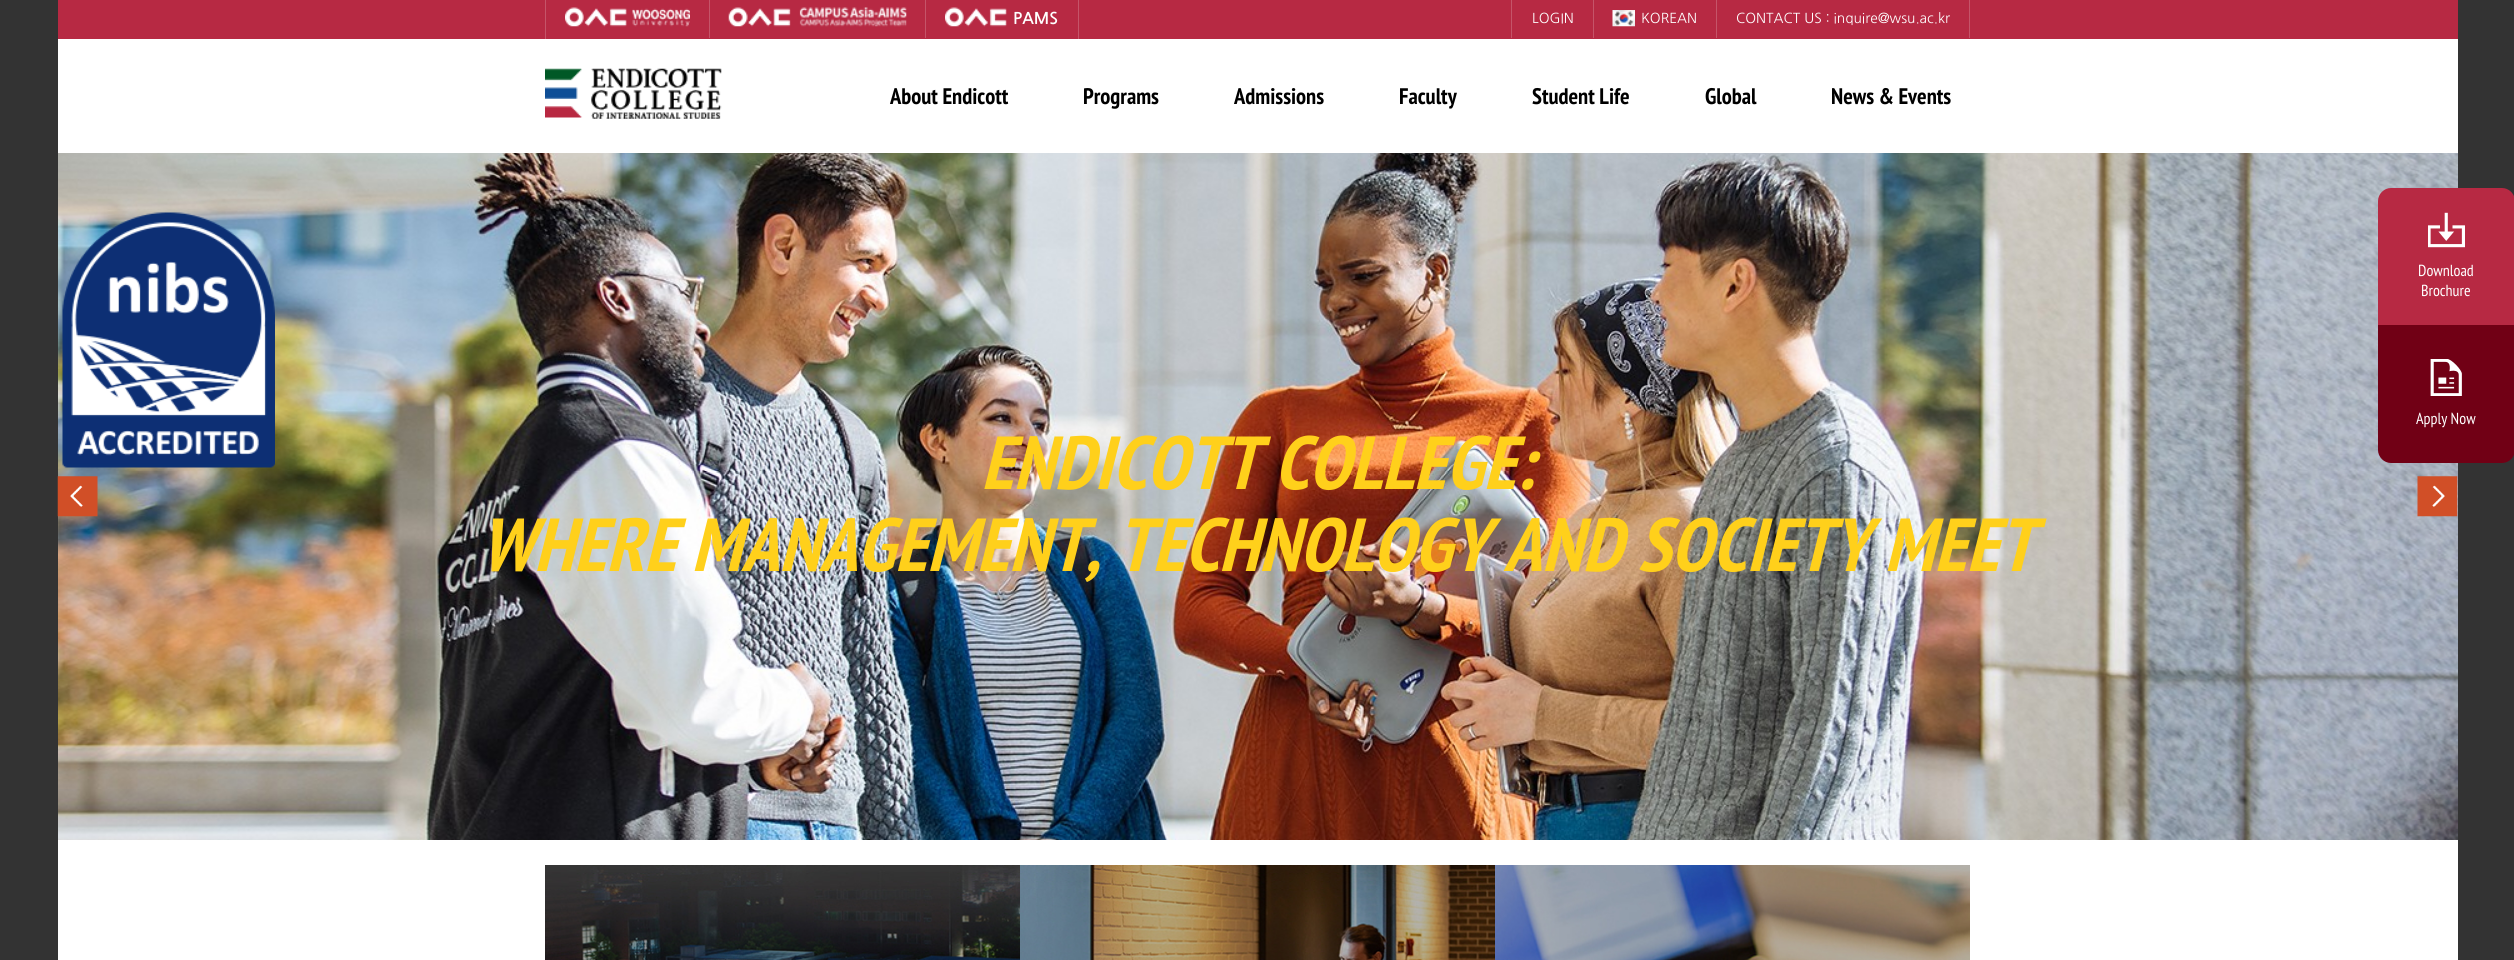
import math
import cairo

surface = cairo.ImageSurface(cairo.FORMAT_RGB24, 2514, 960)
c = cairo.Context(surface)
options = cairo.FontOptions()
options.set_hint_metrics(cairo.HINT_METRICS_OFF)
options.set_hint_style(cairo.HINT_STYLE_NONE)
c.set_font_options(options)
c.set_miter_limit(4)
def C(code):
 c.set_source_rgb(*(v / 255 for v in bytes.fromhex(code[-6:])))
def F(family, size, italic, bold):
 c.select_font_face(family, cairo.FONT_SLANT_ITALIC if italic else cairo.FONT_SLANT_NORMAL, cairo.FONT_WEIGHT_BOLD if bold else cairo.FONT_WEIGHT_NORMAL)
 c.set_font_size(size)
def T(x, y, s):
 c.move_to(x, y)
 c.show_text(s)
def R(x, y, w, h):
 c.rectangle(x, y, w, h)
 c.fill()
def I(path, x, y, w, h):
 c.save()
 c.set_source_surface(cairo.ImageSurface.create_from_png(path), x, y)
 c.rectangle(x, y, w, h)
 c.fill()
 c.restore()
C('333333')
c.paint()
C('ffffff')
R(58,39,2400,921)
C('b72943')
R(58,0,2400,39)
C('c55469')
R(545,0,1,39)
R(709,0,1,38)
I('1.png',565,7,125,20)
R(925,0,1,38)
I('2.png',728,7,179,20)
R(1078,0,1,39)
I('3.png',945,7,62,20)
F('NanumGothic',16,0,1)
C('ffffff')
T(1013,24,'PAMS')
C('c55469')
R(1511,0,1,38)
R(1593,0,1,38)
F('NanumGothic',13.75,0,0)
C('ffffff')
T(1532,23,'LOGIN')
C('c55469')
R(1716,0,1,38)
I('4.png',1612,10,23,17)
C('ffffff')
T(1641,23,'KOREAN')
C('c55469')
R(1969,0,1,38)
C('ffffff')
T(1736,23,'CONTACT US : inquire@wsu.ac.kr')
I('5.png',545,68,177,51)
F('PT Sans Narrow',22.5,0,1)
C('000000')
T(890,104,'About Endicott')
T(1083,104,'Programs')
T(1234,104,'Admissions')
T(1399,104,'Faculty')
T(1532,104,'Student Life')
T(1705,104,'Global')
T(1831,104,'News & Events')
I('9.png',58,153,2400,687)
I('6.png',62,212,213,256)
C('b72943')
c.new_path()
c.move_to(2391,188)
c.line_to(2502,188)
c.curve_to(2509,188,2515,194,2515,201)
c.line_to(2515,325)
c.line_to(2378,325)
c.line_to(2378,201)
c.curve_to(2378,194,2384,188,2391,188)
c.close_path()
c.fill()
I('7.png',2428,212,37,36)
F('PT Sans Narrow',16,0,0)
C('ffffff')
T(2418,276,'Download')
T(2421,296,'Brochure')
C('710015')
c.new_path()
c.move_to(2378,325)
c.line_to(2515,325)
c.line_to(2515,450)
c.curve_to(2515,457,2509,463,2502,463)
c.line_to(2391,463)
c.curve_to(2384,463,2378,457,2378,450)
c.close_path()
c.fill()
I('8.png',2430,359,32,37)
C('ffffff')
T(2416,424,'Apply Now')
F('PT Sans Narrow',75,1,1)
C('ffd01b')
T(981,489,'ENDICOTT COLLEGE:')
T(480,571,'WHERE MANAGEMENT, TECHNOLOGY AND SOCIETY MEET')
I('10.png',57,476,41,41)
I('11.png',2417,476,41,41)
I('12.png',545,865,475,95)
I('13.png',1020,865,475,95)
I('14.png',1495,865,475,95)
surface.write_to_png('o.png')
